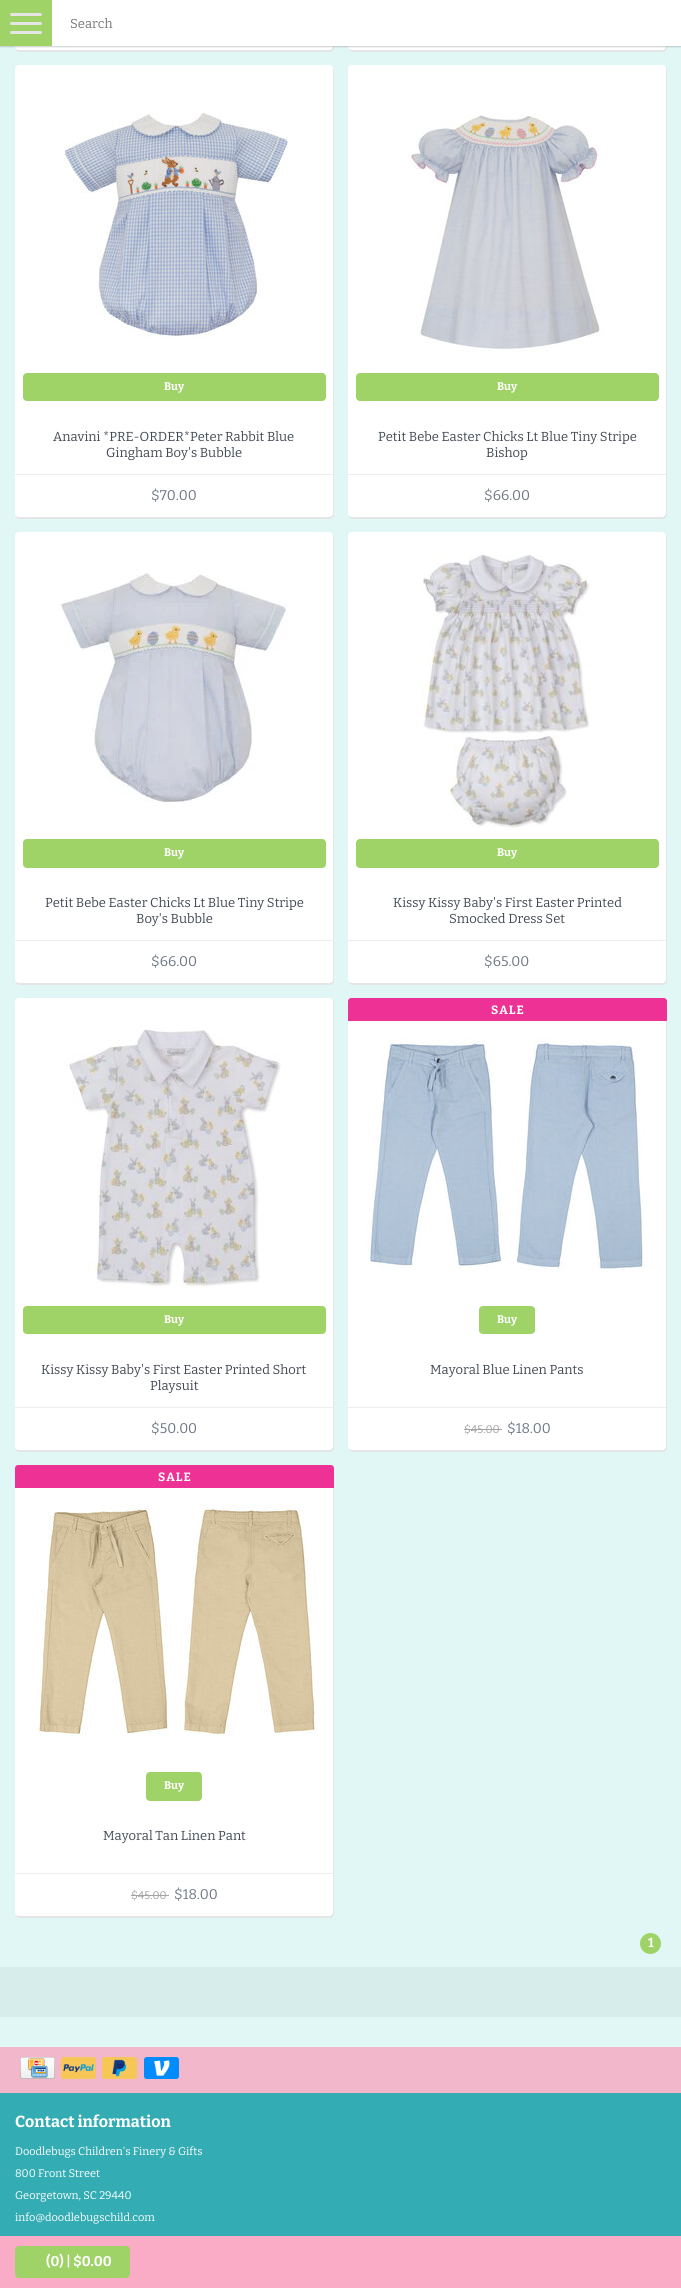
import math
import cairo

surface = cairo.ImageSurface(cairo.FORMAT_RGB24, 681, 2288)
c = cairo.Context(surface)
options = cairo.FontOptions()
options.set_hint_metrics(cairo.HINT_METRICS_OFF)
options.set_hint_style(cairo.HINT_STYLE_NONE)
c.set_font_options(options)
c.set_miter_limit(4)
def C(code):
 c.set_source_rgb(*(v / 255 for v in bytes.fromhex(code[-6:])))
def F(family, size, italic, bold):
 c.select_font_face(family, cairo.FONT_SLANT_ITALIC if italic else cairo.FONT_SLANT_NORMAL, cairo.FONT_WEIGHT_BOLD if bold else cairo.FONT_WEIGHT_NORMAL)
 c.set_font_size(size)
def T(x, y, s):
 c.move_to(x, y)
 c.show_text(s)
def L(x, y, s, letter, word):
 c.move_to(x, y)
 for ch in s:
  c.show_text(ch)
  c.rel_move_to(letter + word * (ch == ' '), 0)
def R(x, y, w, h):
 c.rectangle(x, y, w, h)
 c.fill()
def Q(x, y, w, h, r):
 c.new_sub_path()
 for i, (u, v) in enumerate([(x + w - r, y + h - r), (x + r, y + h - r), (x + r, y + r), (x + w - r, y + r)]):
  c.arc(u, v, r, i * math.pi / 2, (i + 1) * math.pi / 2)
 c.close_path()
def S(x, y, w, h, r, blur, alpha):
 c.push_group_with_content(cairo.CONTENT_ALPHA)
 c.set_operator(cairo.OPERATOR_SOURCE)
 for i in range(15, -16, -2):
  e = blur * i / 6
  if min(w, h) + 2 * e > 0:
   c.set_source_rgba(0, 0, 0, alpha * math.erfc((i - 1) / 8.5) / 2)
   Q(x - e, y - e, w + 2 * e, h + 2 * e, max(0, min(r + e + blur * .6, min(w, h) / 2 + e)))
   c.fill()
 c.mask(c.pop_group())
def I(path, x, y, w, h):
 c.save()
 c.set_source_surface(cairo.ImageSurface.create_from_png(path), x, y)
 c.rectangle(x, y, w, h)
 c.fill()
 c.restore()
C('e0f7f6')
c.paint()
C('e5e5e5')
c.new_path()
c.move_to(16,49)
c.curve_to(16,51,18,52,20,52)
c.line_to(330,52)
c.curve_to(332,52,334,50,334,48)
c.line_to(334,-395)
c.curve_to(334,-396,334,-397,333,-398)
c.line_to(333,46)
c.curve_to(333,48,331,50,329,50)
c.line_to(19,50)
c.curve_to(18,50,17,50,16,49)
c.close_path()
c.fill()
C('ffffff')
Q(15,-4,318,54,4)
c.fill()
C('e5e5e5')
c.new_path()
c.move_to(349,49)
c.curve_to(349,51,351,52,353,52)
c.line_to(663,52)
c.curve_to(665,52,667,50,667,48)
c.line_to(667,-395)
c.curve_to(667,-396,667,-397,666,-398)
c.line_to(666,46)
c.curve_to(666,48,664,50,662,50)
c.line_to(352,50)
c.curve_to(351,50,350,50,349,49)
c.close_path()
c.fill()
C('ffffff')
Q(348,-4,318,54,4)
c.fill()
C('000000')
S(0,1,681,46,0,.5,.2)
C('9fd267')
R(0,0,52,46)
C('e5e5e5')
Q(10,13,32,3,1.5)
c.fill()
Q(10,22,32,3,1.5)
c.fill()
Q(10,31,32,3,1.5)
c.fill()
c.set_source_rgba(1,1,1,0.1)
R(0,46,681,1)
C('ffffff')
R(52,0,629,46)
F('Bitter',13,0,0)
C('777777')
T(70,28,'Search')
C('e5e5e5')
c.new_path()
c.move_to(16,516)
c.curve_to(16,518,18,519,20,519)
c.line_to(330,519)
c.curve_to(332,519,334,517,334,515)
c.line_to(334,71)
c.curve_to(334,70,334,69,333,68)
c.line_to(333,513)
c.curve_to(333,515,331,517,329,517)
c.line_to(19,517)
c.curve_to(18,517,17,517,16,516)
c.close_path()
c.fill()
C('ffffff')
Q(15,65,318,452,4)
c.fill()
I('1.png',64,113,224,224)
C('9fd267')
Q(23,373,303,28,4)
c.fill()
F('Bitter',11,0,1)
C('ffffff')
T(164,390,'Buy')
F('Bitter',13,0,0)
C('434a54')
T(53,441,'Anavini *PRE-ORDER*Peter Rabbit Blue')
T(106,457,'Gingham Boy\'s Bubble')
C('eeeeee')
R(15,474,318,1)
F('Bitter',14,0,0)
C('6d7682')
T(151,500,'$70.00')
C('e5e5e5')
c.new_path()
c.move_to(349,516)
c.curve_to(349,518,351,519,353,519)
c.line_to(663,519)
c.curve_to(665,519,667,517,667,515)
c.line_to(667,71)
c.curve_to(667,70,667,69,666,68)
c.line_to(666,513)
c.curve_to(666,515,664,517,662,517)
c.line_to(352,517)
c.curve_to(351,517,350,517,349,516)
c.close_path()
c.fill()
C('ffffff')
Q(348,65,318,452,4)
c.fill()
I('2.png',405,114,200,238)
C('9fd267')
Q(356,373,303,28,4)
c.fill()
F('Bitter',11,0,1)
C('ffffff')
T(497,390,'Buy')
F('Bitter',13,0,0)
C('434a54')
T(378,441,'Petit Bebe Easter Chicks Lt Blue Tiny Stripe')
T(486,457,'Bishop')
C('eeeeee')
R(348,474,318,1)
F('Bitter',14,0,0)
C('6d7682')
T(484,500,'$66.00')
C('e5e5e5')
c.new_path()
c.move_to(16,982)
c.curve_to(16,984,18,985,20,985)
c.line_to(330,985)
c.curve_to(332,985,334,983,334,981)
c.line_to(334,538)
c.curve_to(334,537,334,536,333,535)
c.line_to(333,979)
c.curve_to(333,981,331,983,329,983)
c.line_to(19,983)
c.curve_to(18,983,17,983,16,982)
c.close_path()
c.fill()
C('ffffff')
Q(15,532,318,451,4)
c.fill()
I('3.png',60,573,228,230)
C('9fd267')
Q(23,839,303,29,4)
c.fill()
F('Bitter',11,0,1)
C('ffffff')
T(164,856,'Buy')
F('Bitter',13,0,0)
C('434a54')
T(45,907,'Petit Bebe Easter Chicks Lt Blue Tiny Stripe')
T(136,923,'Boy\'s Bubble')
C('eeeeee')
R(15,940,318,1)
F('Bitter',14,0,0)
C('6d7682')
T(151,966,'$66.00')
C('e5e5e5')
c.new_path()
c.move_to(349,982)
c.curve_to(349,984,351,985,353,985)
c.line_to(663,985)
c.curve_to(665,985,667,983,667,981)
c.line_to(667,538)
c.curve_to(667,537,667,536,666,535)
c.line_to(666,979)
c.curve_to(666,981,664,983,662,983)
c.line_to(352,983)
c.curve_to(351,983,350,983,349,982)
c.close_path()
c.fill()
C('ffffff')
Q(348,532,318,451,4)
c.fill()
I('4.png',421,555,168,273)
C('9fd267')
Q(356,839,303,29,4)
c.fill()
F('Bitter',11,0,1)
C('ffffff')
T(497,856,'Buy')
F('Bitter',13,0,0)
C('434a54')
T(393,907,'Kissy Kissy Baby\'s First Easter Printed')
T(449,923,'Smocked Dress Set')
C('eeeeee')
R(348,940,318,1)
F('Bitter',14,0,0)
C('6d7682')
T(484,966,'$65.00')
C('e5e5e5')
c.new_path()
c.move_to(16,1449)
c.curve_to(16,1451,18,1452,20,1452)
c.line_to(330,1452)
c.curve_to(332,1452,334,1450,334,1448)
c.line_to(334,1004)
c.curve_to(334,1003,334,1002,333,1001)
c.line_to(333,1446)
c.curve_to(333,1448,331,1450,329,1450)
c.line_to(19,1450)
c.curve_to(18,1450,17,1450,16,1449)
c.close_path()
c.fill()
C('ffffff')
Q(15,998,318,452,4)
c.fill()
I('5.png',65,1029,216,264)
C('9fd267')
Q(23,1306,303,28,4)
c.fill()
F('Bitter',11,0,1)
C('ffffff')
T(164,1323,'Buy')
F('Bitter',13,0,0)
C('434a54')
T(41,1374,'Kissy Kissy Baby\'s First Easter Printed Short')
T(150,1390,'Playsuit')
C('eeeeee')
R(15,1407,318,1)
F('Bitter',14,0,0)
C('6d7682')
T(151,1433,'$50.00')
C('e5e5e5')
c.new_path()
c.move_to(349,1449)
c.curve_to(349,1451,351,1452,353,1452)
c.line_to(663,1452)
c.curve_to(665,1452,667,1450,667,1448)
c.line_to(667,1004)
c.curve_to(667,1003,667,1002,666,1001)
c.line_to(666,1446)
c.curve_to(666,1448,664,1450,662,1450)
c.line_to(352,1450)
c.curve_to(351,1450,350,1450,349,1449)
c.close_path()
c.fill()
C('ffffff')
Q(348,998,318,452,4)
c.fill()
C('ee3195')
c.new_path()
c.move_to(351,998)
c.line_to(664,998)
c.curve_to(665.5,998,667,999.5,667,1001)
c.line_to(667,1021)
c.line_to(348,1021)
c.line_to(348,1001)
c.curve_to(348,999.5,349.5,998,351,998)
c.close_path()
c.fill()
F('Bitter',12,0,1)
C('ffffff')
L(491,1014,'SALE',1,0)
I('6.png',365,1038,280,232)
C('9fd267')
Q(479,1306,56,28,4)
c.fill()
F('Bitter',11,0,1)
C('ffffff')
T(497,1323,'Buy')
F('Bitter',13,0,0)
C('434a54')
T(430,1374,'Mayoral Blue Linen Pants')
C('eeeeee')
R(348,1407,318,1)
F('Bitter',11,0,0)
C('a3a3a3')
T(464,1433,'$45.00')
R(464,1429,38,1)
F('Bitter',14,0,0)
C('6d7682')
T(507,1433,'$18.00')
C('e5e5e5')
c.new_path()
c.move_to(16,1915)
c.curve_to(16,1917,18,1918,20,1918)
c.line_to(330,1918)
c.curve_to(332,1918,334,1916,334,1914)
c.line_to(334,1471)
c.curve_to(334,1470,334,1469,333,1468)
c.line_to(333,1912)
c.curve_to(333,1914,331,1916,329,1916)
c.line_to(19,1916)
c.curve_to(18,1916,17,1916,16,1915)
c.close_path()
c.fill()
C('ffffff')
Q(15,1465,318,451,4)
c.fill()
C('ee3195')
c.new_path()
c.move_to(18,1465)
c.line_to(331,1465)
c.curve_to(332.5,1465,334,1466.5,334,1468)
c.line_to(334,1488)
c.line_to(15,1488)
c.line_to(15,1468)
c.curve_to(15,1466.5,16.5,1465,18,1465)
c.close_path()
c.fill()
F('Bitter',12,0,1)
C('ffffff')
L(158,1481,'SALE',1,0)
I('7.png',36,1504,282,232)
C('9fd267')
Q(146,1772,56,29,4)
c.fill()
F('Bitter',11,0,1)
C('ffffff')
T(164,1789,'Buy')
F('Bitter',13,0,0)
C('434a54')
T(103,1840,'Mayoral Tan Linen Pant')
C('eeeeee')
R(15,1873,318,1)
F('Bitter',11,0,0)
C('a3a3a3')
T(131,1899,'$45.00')
R(131,1895,38,1)
F('Bitter',14,0,0)
C('6d7682')
T(174,1899,'$18.00')
C('9fd267')
c.new_path()
c.arc(650.5,1943.5,10.5,0,2 * math.pi)
c.fill()
F('Bitter',13,0,1)
C('ffffff')
T(648,1947,'1')
C('d7edec')
R(0,1967,681,50)
C('f2b7ca')
R(0,2047,681,46)
I('8.png',20,2057,35,22)
I('9.png',61,2057,35,22)
I('10.png',102,2057,35,22)
I('11.png',144,2057,35,22)
C('33acb3')
R(0,2093,681,143)
F('Bitter',16,0,1)
C('ffffff')
T(15,2127,'Contact information')
F('Bitter',11,0,0)
T(15,2155,'Doodlebugs Children\'s Finery & Gifts')
T(15,2177,'800 Front Street')
T(15,2199,'Georgetown, SC 29440')
T(15,2221,'info@doodlebugschild.com')
C('faabc5')
R(0,2236,681,52)
C('9fd267')
Q(15,2246,115,32,4)
c.fill()
F('Bitter',14,0,1)
C('ffffff')
T(46,2266,'(0) | $0.00')
surface.write_to_png('o.png')
